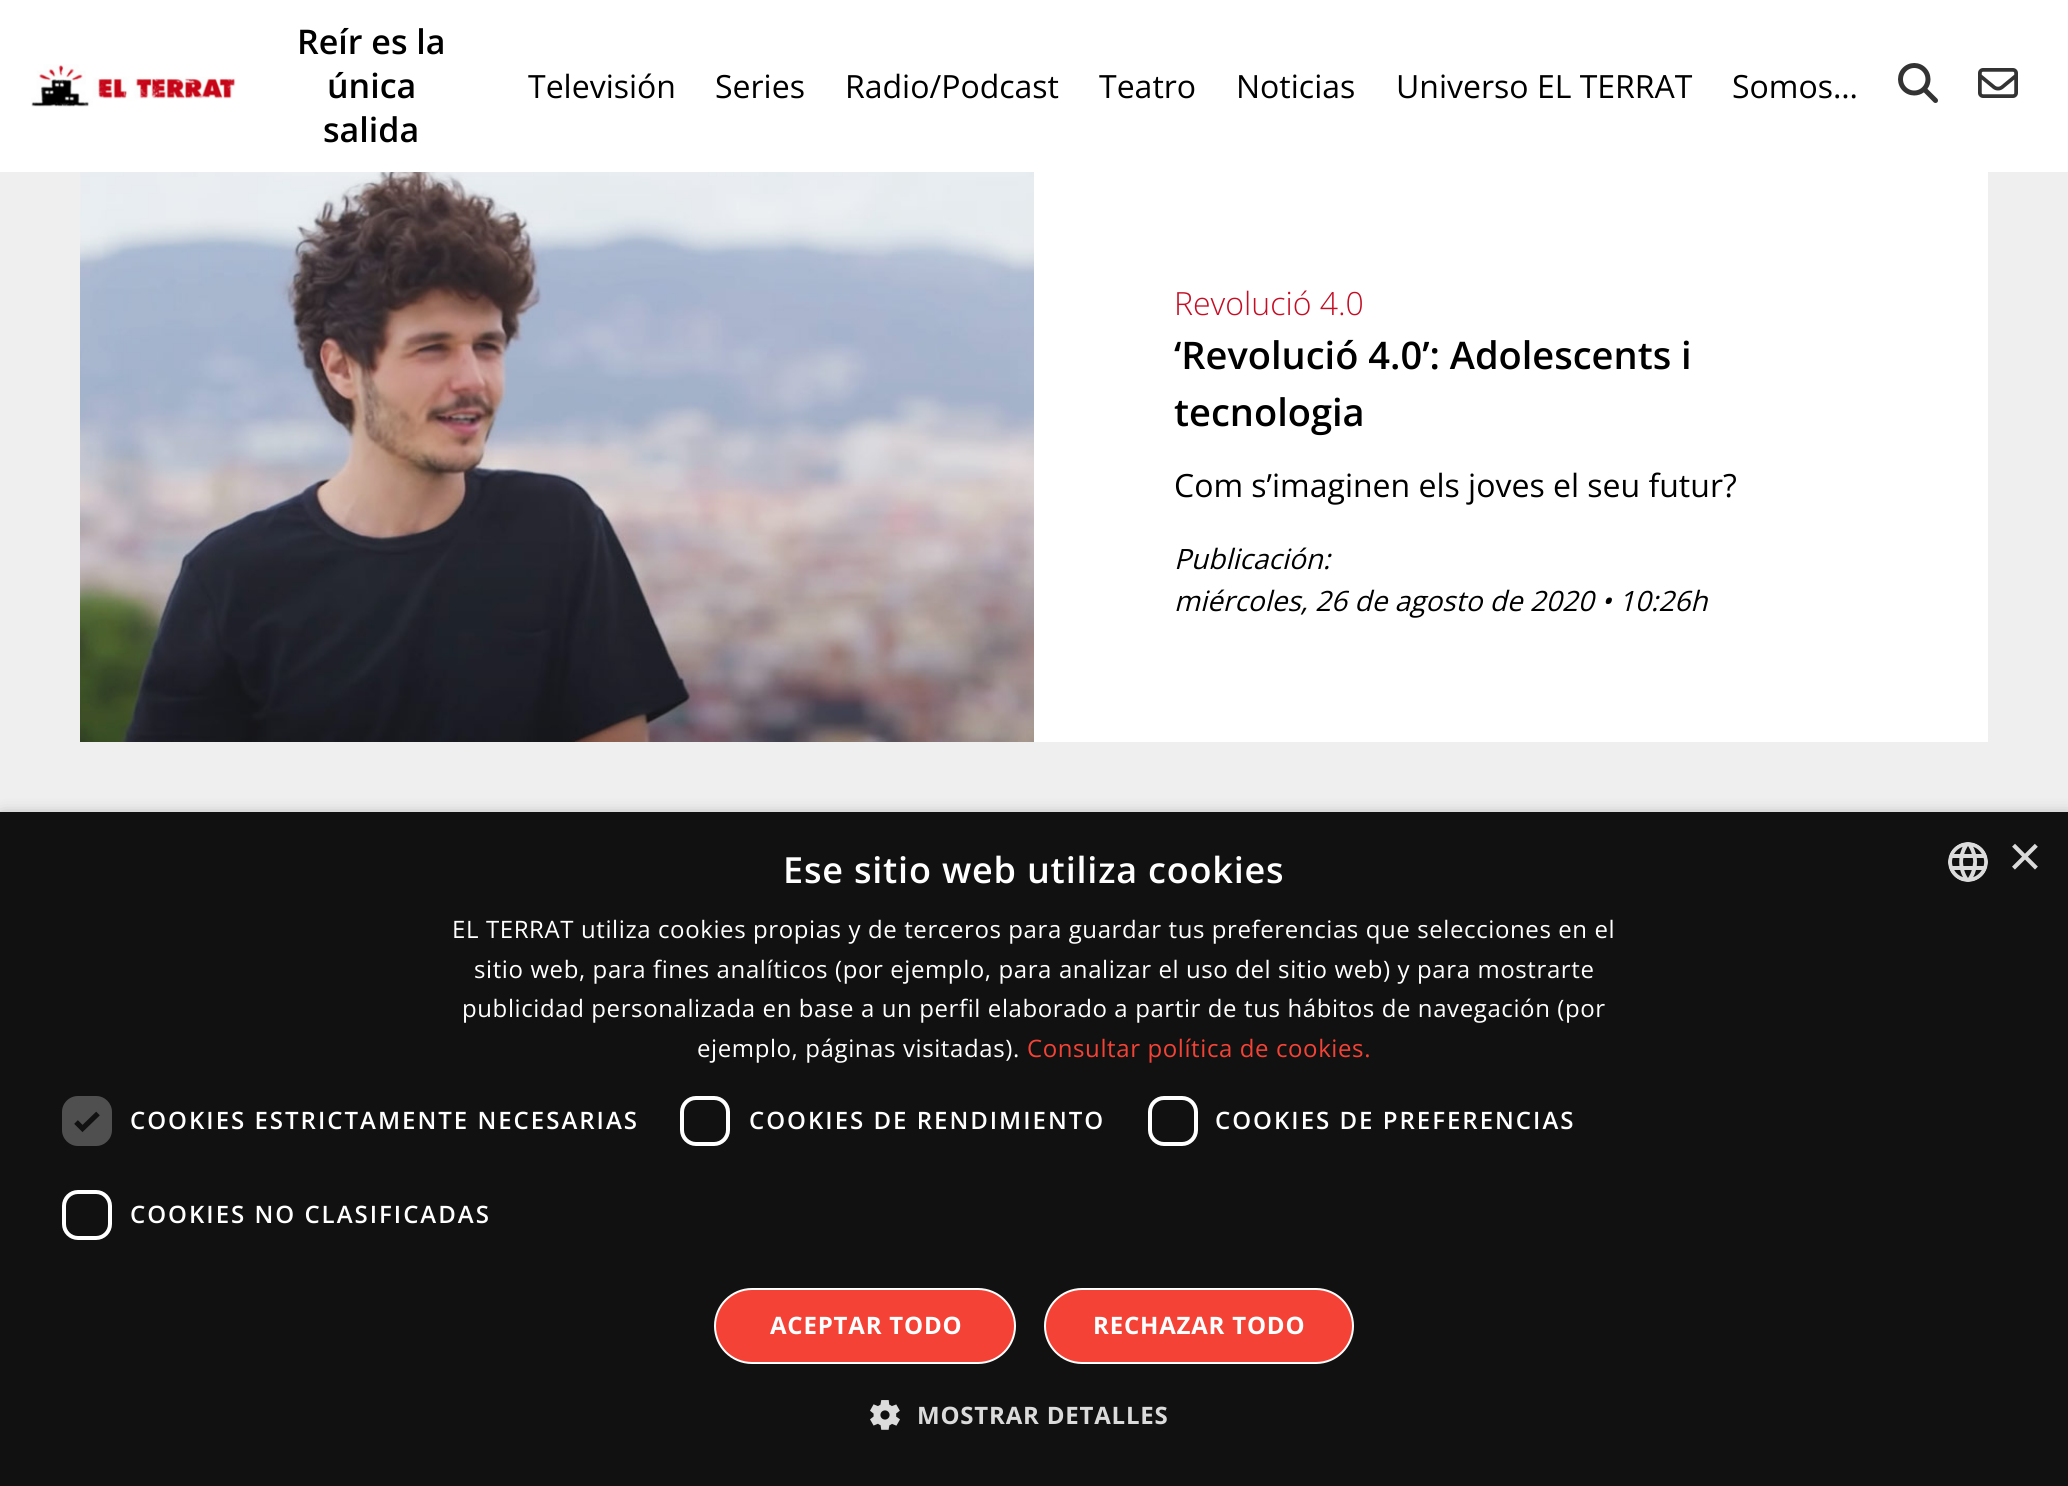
import math
import cairo

surface = cairo.ImageSurface(cairo.FORMAT_RGB24, 2068, 1486)
c = cairo.Context(surface)
options = cairo.FontOptions()
options.set_hint_metrics(cairo.HINT_METRICS_OFF)
options.set_hint_style(cairo.HINT_STYLE_NONE)
c.set_font_options(options)
c.set_miter_limit(4)
def C(code):
 c.set_source_rgb(*(v / 255 for v in bytes.fromhex(code[-6:])))
def F(family, size, italic, bold):
 c.select_font_face(family, cairo.FONT_SLANT_ITALIC if italic else cairo.FONT_SLANT_NORMAL, cairo.FONT_WEIGHT_BOLD if bold else cairo.FONT_WEIGHT_NORMAL)
 c.set_font_size(size)
def T(x, y, s):
 c.move_to(x, y)
 c.show_text(s)
def L(x, y, s, letter, word):
 c.move_to(x, y)
 for ch in s:
  c.show_text(ch)
  c.rel_move_to(letter + word * (ch == ' '), 0)
def R(x, y, w, h):
 c.rectangle(x, y, w, h)
 c.fill()
def Q(x, y, w, h, r):
 c.new_sub_path()
 for i, (u, v) in enumerate([(x + w - r, y + h - r), (x + r, y + h - r), (x + r, y + r), (x + w - r, y + r)]):
  c.arc(u, v, r, i * math.pi / 2, (i + 1) * math.pi / 2)
 c.close_path()
def S(x, y, w, h, r, blur, alpha):
 c.push_group_with_content(cairo.CONTENT_ALPHA)
 c.set_operator(cairo.OPERATOR_SOURCE)
 for i in range(15, -16, -2):
  e = blur * i / 6
  if min(w, h) + 2 * e > 0:
   c.set_source_rgba(0, 0, 0, alpha * math.erfc((i - 1) / 8.5) / 2)
   Q(x - e, y - e, w + 2 * e, h + 2 * e, max(0, min(r + e + blur * .6, min(w, h) / 2 + e)))
   c.fill()
 c.mask(c.pop_group())
def I(path, x, y, w, h):
 c.save()
 c.set_source_surface(cairo.ImageSurface.create_from_png(path), x, y)
 c.rectangle(x, y, w, h)
 c.fill()
 c.restore()
C('efefef')
c.paint()
C('ffffff')
R(0,0,2068,172)
I('1.png',31,64,205,43)
F('Open Sans SemiBold',34,0,0)
C('000000')
T(297,54,'Reír es la')
T(327,98,'única')
T(323,142,'salida')
F('Open Sans',32,0,0)
T(528,98,'Televisión')
T(715,98,'Series')
T(845,98,'Radio/Podcast')
T(1099,98,'Teatro')
T(1236,98,'Noticias')
T(1396,98,'Universo EL TERRAT')
T(1732,98,'Somos…')
I('2.png',1898,63,40,40)
I('3.png',1978,68,40,30)
C('ffffff')
R(1034,172,954,570)
I('4.png',80,172,954,570)
F('Open Sans Light',32,0,0)
C('c50d24')
T(1174,315,'Revolució 4.0')
F('Open Sans SemiBold',38,0,0)
C('000000')
T(1174,369,'‘Revolució 4.0’: Adolescents i')
T(1174,426,'tecnologia')
F('Open Sans',32,0,0)
T(1174,497,'Com s’imaginen els joves el seu futur?')
F('Open Sans',28,1,0)
T(1174,569,'Publicación:')
T(1174,611,'miércoles, 26 de agosto de 2020 • 10:26h')
C('000000')
S(2,816,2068,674,0,8,.35)
C('111111')
R(0,812,2068,674)
F('Open Sans SemiBold',36,0,0)
C('ffffff')
L(783,883,'Ese sitio web utiliza cookies',.8,0)
I('5.png',1948,842,40,40)
F('Liberation Sans',58,0,0)
C('dbdbdb')
T(2008,876,'×')
F('Open Sans',24,0,0)
C('ffffff')
L(452,938,'EL TERRAT utiliza cookies propias y de terceros para guardar tus preferencias que selecciones en el',.6,0)
L(474,978,'sitio web, para fines analíticos (por ejemplo, para analizar el uso del sitio web) y para mostrarte',.6,0)
L(462,1017,'publicidad personalizada en base a un perfil elaborado a partir de tus hábitos de navegación (por',.6,0)
L(697,1057,'ejemplo, páginas visitadas).',.6,0)
C('f44336')
L(1027,1057,'Consultar política de cookies.',.6,0)
C('4f4f4f')
Q(62,1096,50,50,16)
c.fill()
c.new_path()
c.move_to(76,1122)
c.line_to(82.5,1128.5)
c.line_to(98,1113.5)
C('111111')
c.set_line_width(5.2)
c.stroke()
F('Open Sans SemiBold',24,0,0)
C('ffffff')
L(130,1129,'COOKIES ESTRICTAMENTE NECESARIAS',2,0)
Q(682,1098,46,46,14)
c.set_line_width(4)
c.stroke()
L(749,1129,'COOKIES DE RENDIMIENTO',2,0)
Q(1150,1098,46,46,14)
c.stroke()
L(1215,1129,'COOKIES DE PREFERENCIAS',2,0)
Q(64,1192,46,46,14)
c.stroke()
L(130,1223,'COOKIES NO CLASIFICADAS',2,0)
C('f44336')
Q(715,1289,300,74,37)
c.fill_preserve()
C('ffffff')
c.set_line_width(2)
c.stroke()
F('Open Sans',24,0,1)
L(770,1334,'ACEPTAR TODO',.8,0)
C('f44336')
Q(1045,1289,308,74,37)
c.fill_preserve()
C('ffffff')
c.stroke()
L(1093,1334,'RECHAZAR TODO',.8,0)
I('6.png',870,1400,30,30)
C('dbdbdb')
L(917,1424,'MOSTRAR DETALLES',.8,0)
surface.write_to_png('o.png')
